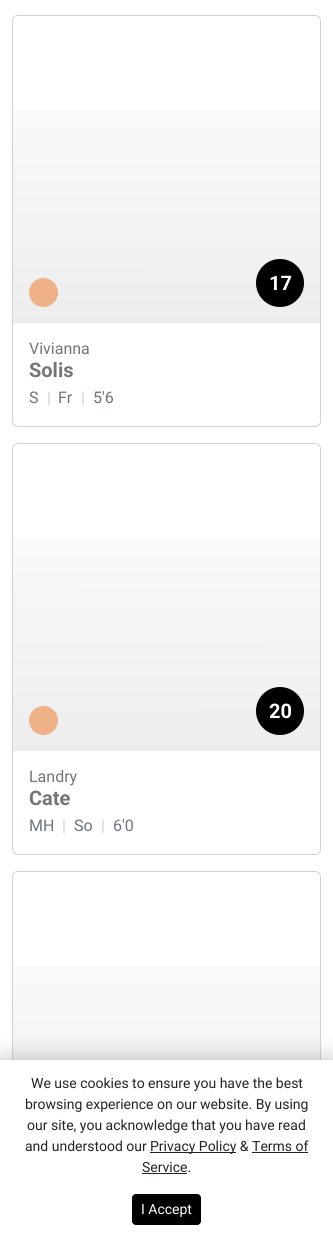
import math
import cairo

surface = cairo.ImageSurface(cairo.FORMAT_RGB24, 333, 1238)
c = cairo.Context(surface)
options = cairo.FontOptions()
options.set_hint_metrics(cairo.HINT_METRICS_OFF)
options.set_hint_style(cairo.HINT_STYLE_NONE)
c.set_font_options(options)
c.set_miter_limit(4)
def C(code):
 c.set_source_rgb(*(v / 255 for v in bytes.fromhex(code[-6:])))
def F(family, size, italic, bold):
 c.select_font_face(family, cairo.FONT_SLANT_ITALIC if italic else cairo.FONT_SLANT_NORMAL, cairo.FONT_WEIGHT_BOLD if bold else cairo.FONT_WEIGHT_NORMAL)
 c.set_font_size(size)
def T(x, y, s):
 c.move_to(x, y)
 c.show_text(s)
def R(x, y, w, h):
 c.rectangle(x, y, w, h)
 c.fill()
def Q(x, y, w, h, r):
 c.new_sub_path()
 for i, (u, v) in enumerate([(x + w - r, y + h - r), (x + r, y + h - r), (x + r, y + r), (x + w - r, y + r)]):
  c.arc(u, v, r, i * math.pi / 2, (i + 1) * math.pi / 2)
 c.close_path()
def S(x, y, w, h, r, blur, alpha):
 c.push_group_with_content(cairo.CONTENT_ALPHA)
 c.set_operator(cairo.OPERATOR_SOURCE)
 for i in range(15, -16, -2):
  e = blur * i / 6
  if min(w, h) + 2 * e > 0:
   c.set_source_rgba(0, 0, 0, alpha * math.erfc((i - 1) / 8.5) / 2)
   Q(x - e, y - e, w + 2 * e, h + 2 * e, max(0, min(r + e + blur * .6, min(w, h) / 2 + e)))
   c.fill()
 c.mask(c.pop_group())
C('ffffff')
c.paint()
Q(12.5,15.5,308,411,5.5)
C('d2d2d2')
c.set_line_width(1)
c.stroke()
c.save()
Q(13,16,307,410,5)
c.clip()
C('ffffff')
Q(13,16,307,410,6)
c.fill()
c.restore()
gradient = cairo.LinearGradient(166,16,167,323)
gradient.add_color_stop_rgba(0,0,0,0,0)
gradient.add_color_stop_rgba(1,0,0,0,.07)
c.set_source(gradient)
R(13,110,307,213)
C('efb288')
c.arc(43.5,292.5,14,0,2 * math.pi)
c.fill_preserve()
c.stroke()
C('000000')
c.arc(280,283,24,0,2 * math.pi)
c.fill()
F('Roboto',20,0,1)
C('ffffff')
T(269,290,'17')
F('Roboto',16,0,0)
C('757575')
T(29,354,'Vivianna')
F('Roboto',20,0,1)
T(29,377,'Solis')
F('Roboto',16,0,0)
C('6c757d')
T(29,403,'S')
C('cccfd2')
T(47,403,'|')
C('6c757d')
T(58,403,'Fr')
C('cccfd2')
T(81,403,'|')
C('6c757d')
T(93,403,'5\'6')
Q(12.5,443.5,308,411,5.5)
C('d2d2d2')
c.stroke()
c.save()
Q(13,444,307,410,5)
c.clip()
C('ffffff')
Q(13,444,307,410,6)
c.fill()
c.restore()
gradient = cairo.LinearGradient(166,444,167,751)
gradient.add_color_stop_rgba(0,0,0,0,0)
gradient.add_color_stop_rgba(1,0,0,0,.07)
c.set_source(gradient)
R(13,538,307,213)
C('efb288')
c.arc(43.5,720.5,14,0,2 * math.pi)
c.fill_preserve()
c.stroke()
C('000000')
c.arc(280,711,24,0,2 * math.pi)
c.fill()
F('Roboto',20,0,1)
C('ffffff')
T(269,718,'20')
F('Roboto',16,0,0)
C('757575')
T(29,782,'Landry')
F('Roboto',20,0,1)
T(29,805,'Cate')
F('Roboto',16,0,0)
C('6c757d')
T(29,831,'MH')
C('cccfd2')
T(62,831,'|')
C('6c757d')
T(74,831,'So')
C('cccfd2')
T(101,831,'|')
C('6c757d')
T(113,831,'6\'0')
Q(12.5,871.5,308,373,5.5)
C('d2d2d2')
c.stroke()
c.save()
Q(13,872,307,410,5)
c.clip()
C('ffffff')
Q(13,872,307,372,6)
c.fill()
c.restore()
gradient = cairo.LinearGradient(166,872,167,1179)
gradient.add_color_stop_rgba(0,0,0,0,0)
gradient.add_color_stop_rgba(1,0,0,0,.07)
c.set_source(gradient)
R(13,966,307,94)
C('000000')
S(0,1060,333,178,0,12,.25)
C('ffffff')
R(0,1060,333,178)
F('Roboto',14,0,0)
C('212529')
T(31,1088,'We use cookies to ensure you have the best')
T(25,1109,'browsing experience on our website. By using')
T(27,1130,'our site, you acknowledge that you have read')
T(25,1151,'and understood our')
R(150,1152,86,1)
T(150,1151,'Privacy Policy & Terms of')
T(142,1172,'Service.')
R(252,1152,56,1)
R(142,1173,45,1)
C('000000')
Q(132.5,1194.5,68,30,3.5)
c.fill_preserve()
c.stroke()
C('ffffff')
T(141,1214,'I Accept')
surface.write_to_png('o.png')
